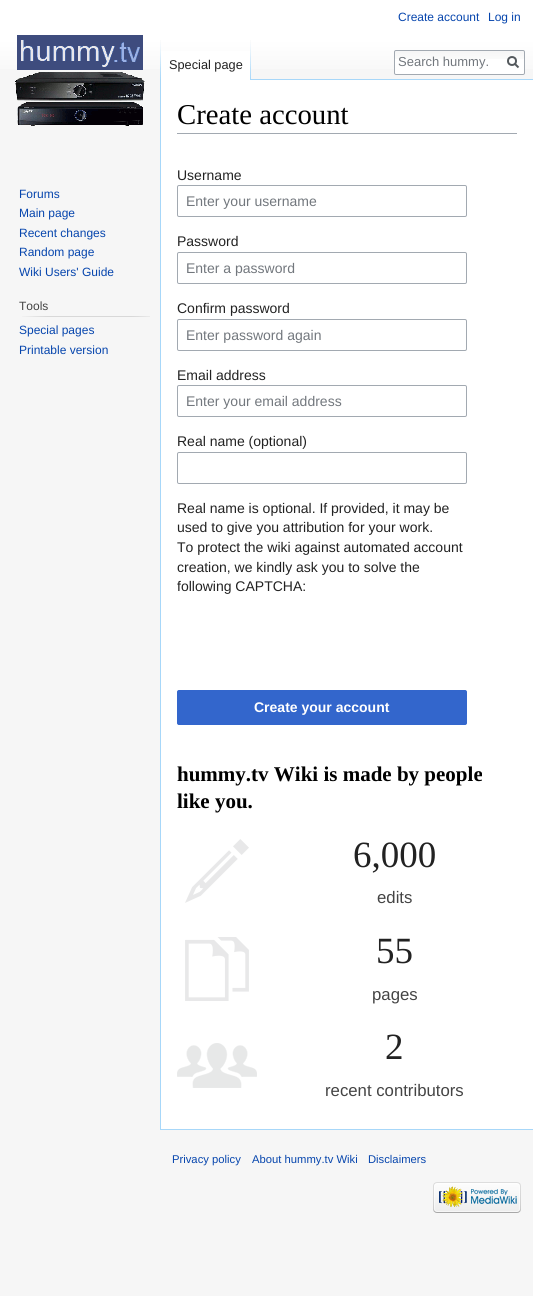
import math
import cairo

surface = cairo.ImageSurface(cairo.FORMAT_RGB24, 533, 1296)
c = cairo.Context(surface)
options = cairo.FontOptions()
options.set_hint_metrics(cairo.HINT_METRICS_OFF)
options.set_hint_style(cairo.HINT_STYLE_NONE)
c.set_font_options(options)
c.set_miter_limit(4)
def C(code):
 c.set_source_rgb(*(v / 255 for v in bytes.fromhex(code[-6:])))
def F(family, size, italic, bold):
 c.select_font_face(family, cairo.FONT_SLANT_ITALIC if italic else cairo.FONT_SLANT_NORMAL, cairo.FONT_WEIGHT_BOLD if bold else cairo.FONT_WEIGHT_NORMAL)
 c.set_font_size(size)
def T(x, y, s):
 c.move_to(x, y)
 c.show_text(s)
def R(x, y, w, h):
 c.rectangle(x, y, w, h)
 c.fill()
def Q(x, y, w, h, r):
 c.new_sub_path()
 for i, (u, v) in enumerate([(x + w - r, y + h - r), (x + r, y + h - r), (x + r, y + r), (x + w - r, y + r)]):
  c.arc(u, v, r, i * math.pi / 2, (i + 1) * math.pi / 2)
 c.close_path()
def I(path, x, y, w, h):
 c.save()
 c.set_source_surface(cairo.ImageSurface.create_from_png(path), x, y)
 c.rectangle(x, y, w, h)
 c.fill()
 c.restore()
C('f6f6f6')
c.paint()
gradient = cairo.LinearGradient(267,0,267,80)
gradient.add_color_stop_rgba(.5,1,1,1,1)
gradient.add_color_stop_rgba(1,0.965,0.965,0.965,1)
c.set_source(gradient)
R(0,0,533,69)
F('Liberation Sans',12,0,0)
C('0645ad')
T(398,21,'Create account')
T(488,21,'Log in')
I('1.png',160,40,1,39)
C('ffffff')
R(161,51,89,29)
I('2.png',250,40,1,40)
F('Liberation Sans',12.75,0,0)
C('222222')
T(169,69,'Special page')
C('ffffff')
Q(394,50,131,25,2)
c.fill()
I('3.png',394,51,131,8)
Q(394.5,50.5,130,24,1.5)
C('a2a9b1')
c.set_line_width(1)
c.stroke()
F('Liberation Sans',13,0,0)
C('72777d')
T(398,66,'Search hummy.')
c.new_path()
c.move_to(518.5,67.5)
c.line_to(514.5,63.5)
C('54595d')
c.set_line_width(2)
c.stroke()
c.arc(512,61,4,0,2 * math.pi)
c.stroke()
I('4.png',15,35,130,91)
F('Liberation Sans',12,0,0)
C('0645ad')
T(19,198,'Forums')
T(19,217,'Main page')
T(19,237,'Recent changes')
T(19,256,'Random page')
T(19,276,'Wiki Users\' Guide')
C('444444')
T(19,310,'Tools')
I('5.png',22,316,128,1)
C('0645ad')
T(19,334,'Special pages')
T(19,354,'Printable version')
C('ffffff')
R(161,80,372,1049)
C('a7d7f9')
R(251,79,282,1)
R(160,1129,373,1)
R(160,79,1,1051)
C('a2a9b1')
R(177,133,340,1)
F('Liberation Serif',28.75,0,0)
C('000000')
T(177,124,'Create account')
F('Liberation Sans',14,0,0)
C('222222')
T(177,180,'Username')
Q(177.5,185.5,289,31,1.5)
C('a2a9b1')
c.set_line_width(1)
c.stroke()
C('72777d')
T(186,206,'Enter your username')
C('222222')
T(177,246,'Password')
Q(177.5,252.5,289,31,1.5)
C('a2a9b1')
c.stroke()
C('72777d')
T(186,273,'Enter a password')
C('222222')
T(177,313,'Confirm password')
Q(177.5,319.5,289,31,1.5)
C('a2a9b1')
c.stroke()
C('72777d')
T(186,340,'Enter password again')
C('222222')
T(177,380,'Email address')
Q(177.5,385.5,289,31,1.5)
C('a2a9b1')
c.stroke()
C('72777d')
T(186,406,'Enter your email address')
C('222222')
T(177,446,'Real name (optional)')
Q(177.5,452.5,289,31,1.5)
C('a2a9b1')
c.stroke()
C('222222')
T(177,513,'Real name is optional. If provided, it may be')
T(177,532,'used to give you attribution for your work.')
T(177,552,'To protect the wiki against automated account')
T(177,572,'creation, we kindly ask you to solve the')
T(177,591,'following CAPTCHA:')
C('3366cc')
Q(177.5,690.5,289,34,1.5)
c.fill_preserve()
c.stroke()
F('Liberation Sans',14,0,1)
C('ffffff')
T(254,712,'Create your account')
F('Liberation Serif',21,0,1)
C('000000')
T(177,781,'hummy.tv Wiki is made by people')
T(177,808,'like you.')
I('6.png',185,839,64,64)
F('Liberation Serif',37,0,0)
C('222222')
T(353,867,'6,000')
F('Liberation Sans',16.75,0,0)
C('444444')
T(377,903,'edits')
I('7.png',185,937,64,64)
F('Liberation Serif',37,0,0)
C('222222')
T(376,963,'55')
F('Liberation Sans',16.75,0,0)
C('444444')
T(372,1000,'pages')
I('8.png',177,1043,80,45)
F('Liberation Serif',37,0,0)
C('222222')
T(385,1059,'2')
F('Liberation Sans',16.75,0,0)
C('444444')
T(325,1096,'recent contributors')
F('Liberation Sans',11.25,0,0)
C('0645ad')
T(172,1163,'Privacy policy')
T(252,1163,'About hummy.tv Wiki')
T(368,1163,'Disclaimers')
I('9.png',433,1182,88,31)
surface.write_to_png('o.png')
